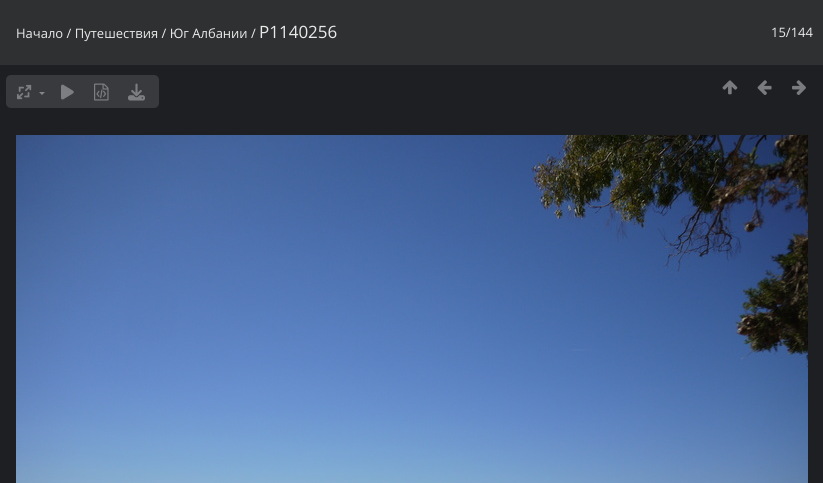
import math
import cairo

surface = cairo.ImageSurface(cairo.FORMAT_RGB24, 823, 483)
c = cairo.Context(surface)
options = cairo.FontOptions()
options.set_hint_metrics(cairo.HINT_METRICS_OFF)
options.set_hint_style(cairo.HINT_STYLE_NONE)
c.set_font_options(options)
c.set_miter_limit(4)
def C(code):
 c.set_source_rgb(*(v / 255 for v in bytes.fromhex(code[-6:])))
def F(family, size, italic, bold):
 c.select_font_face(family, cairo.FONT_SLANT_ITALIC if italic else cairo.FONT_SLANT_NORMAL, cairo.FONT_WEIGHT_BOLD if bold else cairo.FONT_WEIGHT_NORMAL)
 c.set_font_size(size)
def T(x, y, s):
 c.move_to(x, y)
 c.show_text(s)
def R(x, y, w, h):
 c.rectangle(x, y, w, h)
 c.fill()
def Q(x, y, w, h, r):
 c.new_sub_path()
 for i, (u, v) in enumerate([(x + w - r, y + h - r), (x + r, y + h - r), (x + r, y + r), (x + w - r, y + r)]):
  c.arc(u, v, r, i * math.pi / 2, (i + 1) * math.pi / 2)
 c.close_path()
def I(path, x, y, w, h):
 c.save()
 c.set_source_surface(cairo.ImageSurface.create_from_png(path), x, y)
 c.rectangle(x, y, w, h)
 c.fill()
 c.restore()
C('1e1f23')
c.paint()
C('2f3032')
R(0,0,823,65)
F('Open Sans',13,0,0)
C('eaeae9')
T(16,38,'Начало / Путешествия / Юг Албании /')
F('Open Sans',17,0,0)
T(259,38,'P1140256')
F('Open Sans',13,0,0)
T(771,37,'15/144')
C('393a3d')
Q(6,75,153,33,5)
c.fill()
I('1.png',17,84,15,16)
C('848588')
c.new_path()
c.move_to(39,92)
c.line_to(45,92)
c.line_to(42,95)
c.close_path()
c.fill()
I('2.png',61,84,13,16)
I('3.png',94,83,15,18)
I('4.png',128,83,17,18)
I('5.png',722,80,16,15)
I('6.png',757,80,15,15)
I('7.png',792,80,14,15)
I('8.png',16,135,792,348)
surface.write_to_png('o.png')
